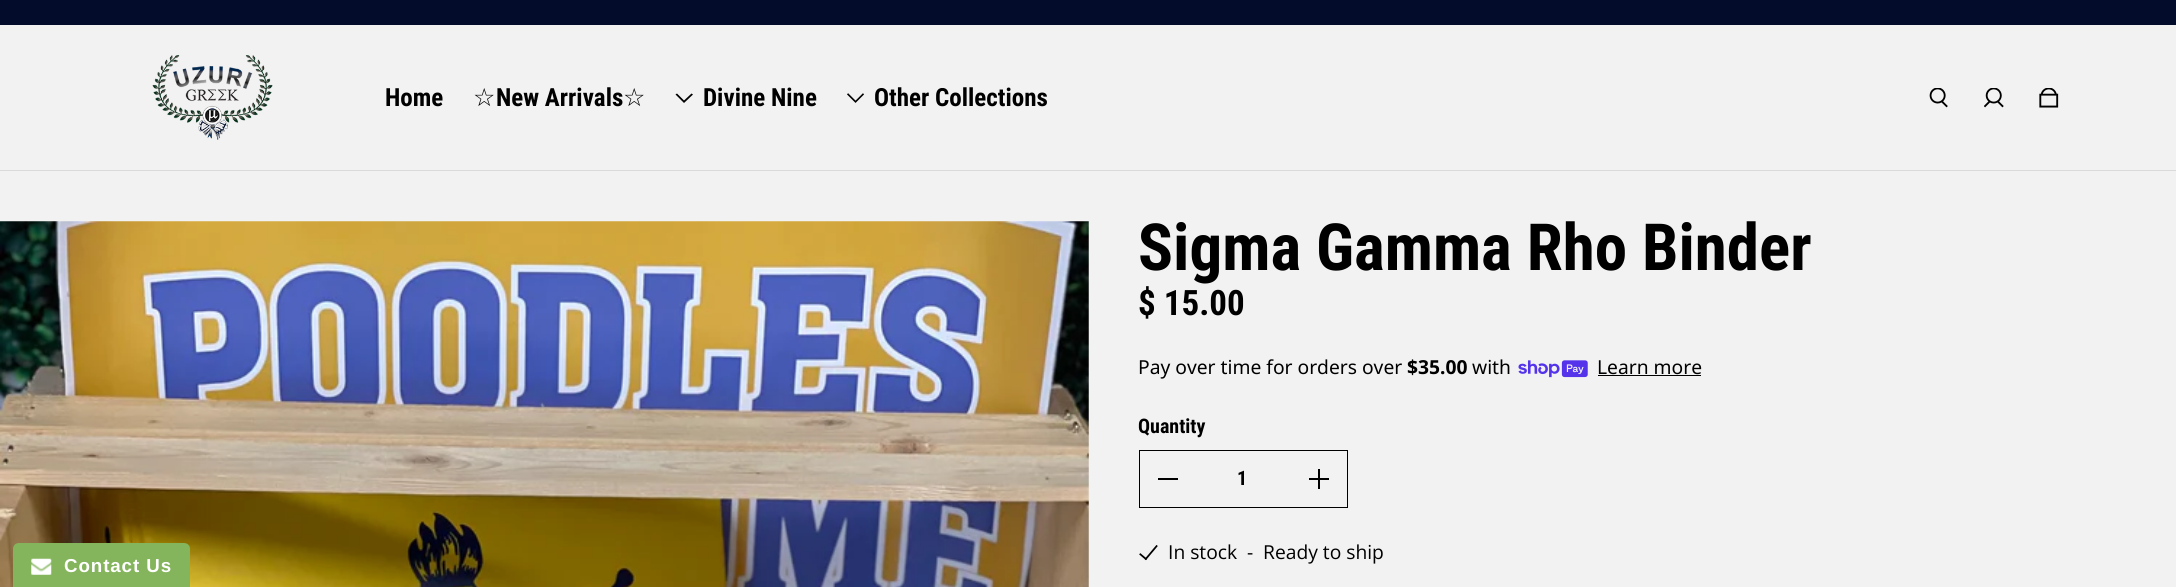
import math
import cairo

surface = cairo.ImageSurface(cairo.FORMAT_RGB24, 2176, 587)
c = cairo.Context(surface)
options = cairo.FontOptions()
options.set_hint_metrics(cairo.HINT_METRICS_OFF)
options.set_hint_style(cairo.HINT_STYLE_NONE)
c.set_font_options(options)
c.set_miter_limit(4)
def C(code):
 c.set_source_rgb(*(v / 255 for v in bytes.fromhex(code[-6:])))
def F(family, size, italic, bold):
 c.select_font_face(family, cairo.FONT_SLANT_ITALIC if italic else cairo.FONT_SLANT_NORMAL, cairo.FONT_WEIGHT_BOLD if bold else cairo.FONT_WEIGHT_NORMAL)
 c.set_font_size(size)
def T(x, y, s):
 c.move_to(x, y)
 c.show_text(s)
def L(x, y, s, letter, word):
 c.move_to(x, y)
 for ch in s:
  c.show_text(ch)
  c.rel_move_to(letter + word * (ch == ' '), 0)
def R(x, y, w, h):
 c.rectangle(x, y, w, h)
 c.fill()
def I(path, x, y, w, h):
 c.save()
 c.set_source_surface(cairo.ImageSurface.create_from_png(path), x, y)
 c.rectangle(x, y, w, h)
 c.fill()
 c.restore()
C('f2f2f2')
c.paint()
C('040c2b')
R(0,0,2176,25)
C('dadada')
R(0,170,2176,1)
I('1.png',152,55,121,85)
F('Roboto Condensed',25,0,1)
C('000000')
T(385,106,'Home')
F('DejaVu Sans',25,0,0)
T(473,106,'☆')
F('Roboto Condensed',25,0,1)
T(496,106,'New Arrivals')
F('DejaVu Sans',25,0,0)
T(623,106,'☆')
c.set_fill_rule(cairo.FILL_RULE_EVEN_ODD)
c.new_path()
c.move_to(684,100.5)
c.line_to(677,93.5)
c.line_to(675.5,94.5)
c.line_to(684,103)
c.line_to(693,94.5)
c.line_to(691.5,93.5)
c.close_path()
c.fill()
F('Roboto Condensed',25,0,1)
T(703,106,'Divine Nine')
I('2.png',847,93,17,10)
T(874,106,'Other Collections')
I('3.png',1929,88,19,20)
I('4.png',1984,88,20,20)
I('5.png',2039,88,20,20)
I('6.png',0,221,1089,366)
F('Roboto Condensed',65,0,1)
T(1138,270,'Sigma Gamma Rho Binder')
F('Roboto Condensed',35,0,1)
T(1138,315,'$ 15.00')
F('Noto Sans',19.25,0,0)
T(1138,374,'Pay over time for orders over')
F('Noto Sans',19.25,0,1)
T(1407,374,'$35.00')
F('Noto Sans',19.25,0,0)
T(1472,374,'with')
I('7.png',1518,360,70,18)
T(1597,374,'Learn more')
R(1598,375,103,1)
F('Roboto Condensed',20,0,1)
T(1138,433,'Quantity')
c.rectangle(1139.5,450.5,208,57)
c.set_line_width(1)
c.stroke()
R(1158,478,20,2)
T(1237,485,'1')
R(1309,478,20,2)
R(1318,469,2,20)
I('8.png',1139,545,19,16)
F('Open Sans',19.25,0,0)
T(1168,559,'In stock')
T(1247,559,'-')
T(1263,559,'Ready to ship')
C('84b45b')
c.new_path()
c.move_to(19,543)
c.line_to(184,543)
c.curve_to(187.5,543,190,545.5,190,549)
c.line_to(190,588)
c.line_to(13,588)
c.line_to(13,549)
c.curve_to(13,545.5,15.5,543,19,543)
c.close_path()
c.fill()
I('9.png',31,558,21,17)
F('Liberation Sans',18.75,0,1)
C('ffffff')
L(64,572,'Contact Us',.9,0)
surface.write_to_png('o.png')
